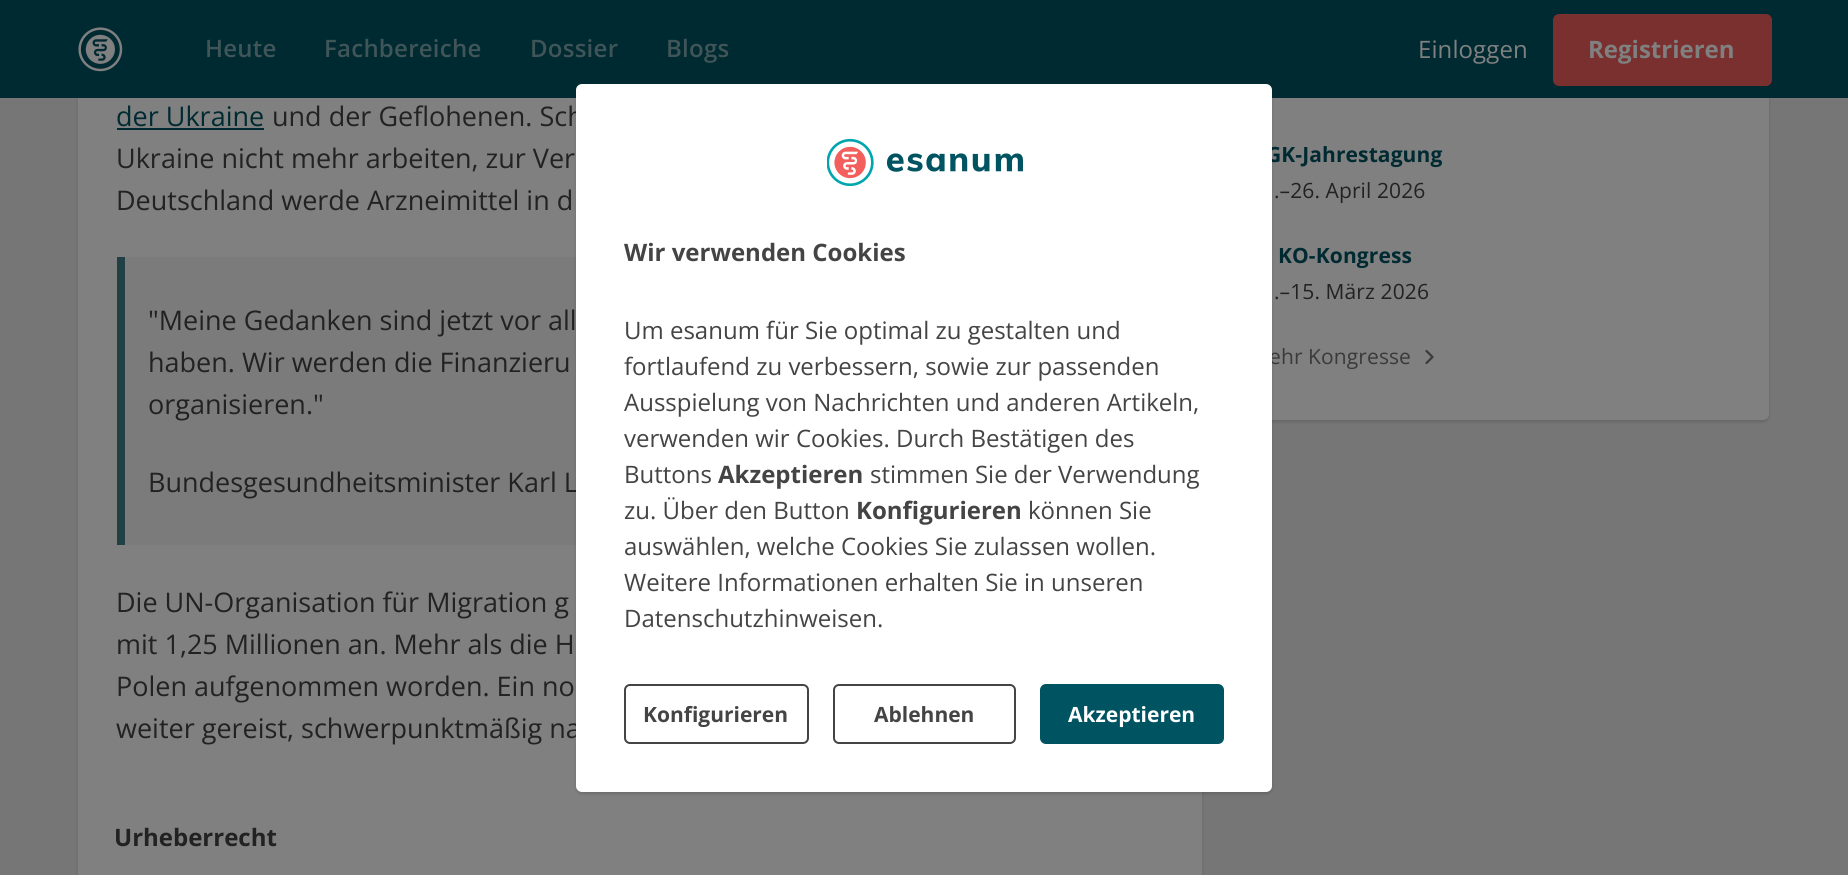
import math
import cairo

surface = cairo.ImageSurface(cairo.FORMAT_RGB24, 1848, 875)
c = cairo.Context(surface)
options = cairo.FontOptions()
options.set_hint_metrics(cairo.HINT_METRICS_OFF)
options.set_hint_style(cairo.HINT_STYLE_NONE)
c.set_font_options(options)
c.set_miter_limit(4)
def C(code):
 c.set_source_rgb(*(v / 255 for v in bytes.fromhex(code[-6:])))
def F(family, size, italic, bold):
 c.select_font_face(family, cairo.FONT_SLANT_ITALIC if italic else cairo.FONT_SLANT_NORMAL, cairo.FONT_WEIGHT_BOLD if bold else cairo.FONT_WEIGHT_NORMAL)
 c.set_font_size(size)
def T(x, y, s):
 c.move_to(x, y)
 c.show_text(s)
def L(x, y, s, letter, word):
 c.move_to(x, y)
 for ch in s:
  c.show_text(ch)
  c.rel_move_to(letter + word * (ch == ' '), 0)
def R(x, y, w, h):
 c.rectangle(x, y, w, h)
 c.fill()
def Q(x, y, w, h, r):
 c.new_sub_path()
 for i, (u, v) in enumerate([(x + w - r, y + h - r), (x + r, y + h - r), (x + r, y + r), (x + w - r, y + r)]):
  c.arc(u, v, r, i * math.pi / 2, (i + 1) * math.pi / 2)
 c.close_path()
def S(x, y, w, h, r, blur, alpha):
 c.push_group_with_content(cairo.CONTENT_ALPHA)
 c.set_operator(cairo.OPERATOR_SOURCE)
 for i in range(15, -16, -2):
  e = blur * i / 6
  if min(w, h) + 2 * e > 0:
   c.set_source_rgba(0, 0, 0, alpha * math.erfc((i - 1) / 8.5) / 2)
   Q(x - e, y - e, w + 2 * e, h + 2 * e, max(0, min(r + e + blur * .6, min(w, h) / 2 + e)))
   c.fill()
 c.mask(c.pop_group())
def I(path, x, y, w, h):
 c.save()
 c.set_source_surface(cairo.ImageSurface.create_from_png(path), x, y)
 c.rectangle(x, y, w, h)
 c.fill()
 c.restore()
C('767676')
c.paint()
C('000000')
S(78,-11,1124,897,6,1.5,.15)
S(1214,-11,555,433,6,1.5,.15)
C('808080')
Q(1214,-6,555,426,6)
c.fill()
C('002a31')
R(0,0,1848,98)
I('1.png',78,27,45,45)
F('Open Sans SemiBold',24,0,0)
C('405558')
L(205,57,'Heute',.25,0)
L(324,57,'Fachbereiche',.25,0)
L(530,57,'Dossier',.25,0)
L(666,57,'Blogs',.25,0)
F('Open Sans',24,0,0)
C('808080')
L(1418,58,'Einloggen',.1,0)
C('79302e')
Q(1553,14,219,72,6)
c.fill()
F('Open Sans',24,0,1)
C('808080')
T(1588,58,'Registrieren')
R(78,98,1124,777)
F('Open Sans',27,0,0)
C('002a31')
T(116,126,'der Ukraine')
R(117,128,147,2)
C('222222')
T(272,126,'und der Geflohenen. Sch')
T(116,168,'Ukraine nicht mehr arbeiten, zur Ver')
T(116,210,'Deutschland werde Arzneimittel in d')
C('7b7b7b')
R(125,257,451,288)
C('204045')
R(117,257,8,288)
C('222222')
T(148,330,'"Meine Gedanken sind jetzt vor all')
T(148,372,'haben. Wir werden die Finanzieru')
T(148,414,'organisieren."')
T(148,492,'Bundesgesundheitsminister Karl L')
T(116,612,'Die UN-Organisation für Migration g')
T(116,654,'mit 1,25 Millionen an. Mehr als die H')
T(116,696,'Polen aufgenommen worden. Ein no')
T(116,738,'weiter gereist, schwerpunktmäßig na')
F('Open Sans',24,0,1)
T(114,846,'Urheberrecht')
F('Open Sans',21,0,1)
C('002a31')
L(1266,162,'GK-Jahrestagung',.1,0)
F('Open Sans',21,0,0)
C('222222')
L(1274,198,'.–26. April 2026',.1,0)
F('Open Sans',21,0,1)
C('002a31')
L(1278,263,'KO-Kongress',.1,0)
F('Open Sans',21,0,0)
C('222222')
L(1274,299,'.–15. März 2026',.1,0)
C('3a3a3a')
L(1269,364,'ehr Kongresse',.1,0)
c.new_path()
c.move_to(1426.5,351)
c.line_to(1432.5,357)
c.line_to(1426.5,363)
c.set_line_width(2.2)
c.set_line_cap(cairo.LINE_CAP_ROUND)
c.set_line_join(cairo.LINE_JOIN_ROUND)
c.stroke()
C('000000')
S(576,86,696,708,6,1.5,.15)
C('ffffff')
Q(576,84,696,708,6)
c.fill()
I('2.png',827,138,196,49)
F('Open Sans',24,0,1)
C('444444')
T(624,261,'Wir verwenden Cookies')
F('Open Sans',24,0,0)
T(624,339,'Um esanum für Sie optimal zu gestalten und')
T(624,375,'fortlaufend zu verbessern, sowie zur passenden')
T(624,411,'Ausspielung von Nachrichten und anderen Artikeln,')
T(624,447,'verwenden wir Cookies. Durch Bestätigen des')
T(624,483,'Buttons')
F('Open Sans',24,0,1)
T(718,483,'Akzeptieren')
F('Open Sans',24,0,0)
T(870,483,'stimmen Sie der Verwendung')
T(624,519,'zu. Über den Button')
F('Open Sans',24,0,1)
T(856,519,'Konfigurieren')
F('Open Sans',24,0,0)
T(1028,519,'können Sie')
T(624,555,'auswählen, welche Cookies Sie zulassen wollen.')
T(624,591,'Weitere Informationen erhalten Sie in unseren')
T(624,627,'Datenschutzhinweisen.')
Q(625,685,183,58,5)
c.set_line_width(2)
c.set_line_cap(cairo.LINE_CAP_BUTT)
c.set_line_join(cairo.LINE_JOIN_MITER)
c.stroke()
F('Open Sans',21,0,1)
T(643,722,'Konfigurieren')
Q(834,685,181,58,5)
c.stroke()
T(874,722,'Ablehnen')
C('005461')
Q(1040,684,184,60,6)
c.fill()
C('ffffff')
T(1068,722,'Akzeptieren')
surface.write_to_png('o.png')
